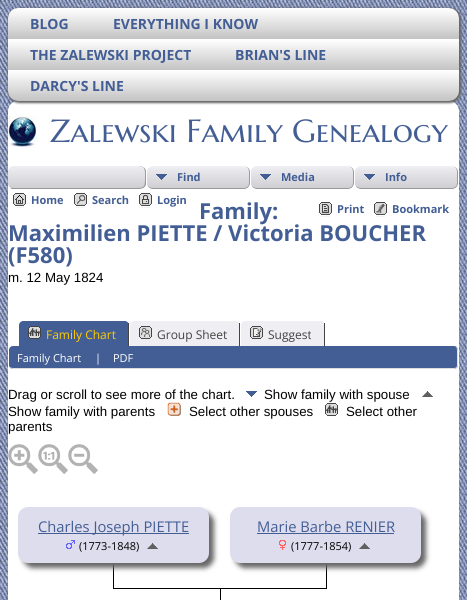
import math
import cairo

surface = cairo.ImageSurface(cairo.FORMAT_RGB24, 467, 600)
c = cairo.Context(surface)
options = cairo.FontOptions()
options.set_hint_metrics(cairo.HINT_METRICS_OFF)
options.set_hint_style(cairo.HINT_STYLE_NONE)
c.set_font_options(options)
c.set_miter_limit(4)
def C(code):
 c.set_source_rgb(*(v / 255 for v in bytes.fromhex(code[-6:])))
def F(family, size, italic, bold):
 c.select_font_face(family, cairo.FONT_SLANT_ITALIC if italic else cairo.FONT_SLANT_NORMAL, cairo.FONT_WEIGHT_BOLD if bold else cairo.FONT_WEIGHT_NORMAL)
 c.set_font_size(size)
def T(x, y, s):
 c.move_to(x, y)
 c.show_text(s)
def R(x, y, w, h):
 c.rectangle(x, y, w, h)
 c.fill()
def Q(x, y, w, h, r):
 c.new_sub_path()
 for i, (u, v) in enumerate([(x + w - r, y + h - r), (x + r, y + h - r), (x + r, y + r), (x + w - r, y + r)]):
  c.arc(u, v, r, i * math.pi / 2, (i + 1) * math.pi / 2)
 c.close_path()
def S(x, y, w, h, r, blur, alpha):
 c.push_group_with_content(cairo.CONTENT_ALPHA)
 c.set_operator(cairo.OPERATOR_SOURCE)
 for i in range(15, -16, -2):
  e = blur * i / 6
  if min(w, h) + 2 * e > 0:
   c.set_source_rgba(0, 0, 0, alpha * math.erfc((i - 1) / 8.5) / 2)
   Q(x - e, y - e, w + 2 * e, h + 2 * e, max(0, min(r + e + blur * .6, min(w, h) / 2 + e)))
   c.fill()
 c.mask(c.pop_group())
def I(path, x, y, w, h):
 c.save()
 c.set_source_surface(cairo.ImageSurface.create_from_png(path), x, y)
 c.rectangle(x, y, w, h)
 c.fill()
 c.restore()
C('ffffff')
c.paint()
I('1.png',0,0,467,600)
C('ffffff')
Q(8,101,451,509,10)
c.fill()
C('666666')
S(8,8,453,95,11,1,1)
I('2.png',8,8,451,93)
F('Open Sans',14,0,1)
C('435e95')
T(30,29,'BLOG')
T(113,29,'EVERYTHING I KNOW')
T(30,60,'THE ZALEWSKI PROJECT')
T(235,60,'BRIAN\'S LINE')
T(30,91,'DARCY\'S LINE')
I('3.png',8,116,29,32)
F('Marcellus SC',32,0,0)
T(50,142,'Zalewski Family Genealogy')
C('eeeef3')
Q(8,166,451,23,6)
c.fill()
c.save()
Q(8,166,451,23,6)
c.clip()
gradient = cairo.LinearGradient(234,166,234,188)
gradient.add_color_stop_rgba(0,0.933,0.933,0.953,1)
gradient.add_color_stop_rgba(1,0.808,0.808,0.827,1)
c.set_source(gradient)
c.new_path()
c.move_to(14,166)
c.line_to(453,166)
c.curve_to(456.5,166,459,168.5,459,172)
c.line_to(459,188)
c.line_to(8,188)
c.line_to(8,172)
c.curve_to(8,168.5,10.5,166,14,166)
c.close_path()
c.fill()
c.restore()
C('999999')
R(11,188,124,1)
C('ffffff')
R(140,166,319,23)
c.save()
c.new_path()
c.move_to(135,166)
c.line_to(140,166)
c.curve_to(143.5,166,146,168.5,146,172)
c.line_to(146,183)
c.curve_to(146,186.5,143.5,189,140,189)
c.line_to(135,189)
c.close_path()
c.clip()
gradient = cairo.LinearGradient(140,166,140,188)
gradient.add_color_stop_rgba(0,0.933,0.933,0.953,1)
gradient.add_color_stop_rgba(1,0.808,0.808,0.827,1)
c.set_source(gradient)
R(135,166,11,22)
gradient = cairo.LinearGradient(140,188,140,210)
gradient.add_color_stop_rgba(0,0.933,0.933,0.953,1)
gradient.add_color_stop_rgba(1,0.808,0.808,0.827,1)
c.set_source(gradient)
R(135,188,11,1)
c.restore()
C('999999')
c.set_fill_rule(cairo.FILL_RULE_EVEN_ODD)
c.new_path()
c.move_to(135,166)
c.curve_to(139,166,145,165.5,146,171)
c.line_to(146,184)
c.curve_to(145,189.5,139,189,135,189)
c.close_path()
c.move_to(135,166)
c.line_to(141,166)
c.curve_to(146,167.5,145,174,145,177.5)
c.curve_to(145,187.5,144.5,188,135,188)
c.close_path()
c.fill()
C('eeeef3')
Q(147,166,103,23,6)
c.fill()
I('4.png',147,168,102,20)
C('999999')
c.new_path()
c.move_to(153,166)
c.line_to(244,166)
c.curve_to(247,166,250,169,250,172)
c.line_to(250,183)
c.curve_to(250,186,247,189,244,189)
c.line_to(153,189)
c.curve_to(150,189,147,186,147,183)
c.line_to(147,172)
c.curve_to(147,169,150,166,153,166)
c.close_path()
c.move_to(153,166)
c.line_to(244,166)
c.curve_to(247,166,249,169,249,172)
c.line_to(249,183)
c.curve_to(249,186,247,188,244,188)
c.line_to(153,188)
c.curve_to(150,188,147,186,147,183)
c.line_to(147,172)
c.curve_to(147,169,150,166,153,166)
c.close_path()
c.fill()
F('Open Sans',11,0,1)
C('435e95')
T(177,181,'Find')
I('5.png',251,166,102,22)
C('999999')
c.new_path()
c.move_to(257,166)
c.line_to(348,166)
c.curve_to(351,166,354,169,354,172)
c.line_to(354,183)
c.curve_to(354,186,351,189,348,189)
c.line_to(257,189)
c.curve_to(254,189,251,186,251,183)
c.line_to(251,172)
c.curve_to(251,169,254,166,257,166)
c.close_path()
c.move_to(257,166)
c.line_to(348,166)
c.curve_to(351,166,353,169,353,172)
c.line_to(353,183)
c.curve_to(353,186,351,188,348,188)
c.line_to(257,188)
c.curve_to(254,188,251,186,251,183)
c.line_to(251,172)
c.curve_to(251,169,254,166,257,166)
c.close_path()
c.fill()
C('435e95')
T(281,181,'Media')
C('eeeef3')
Q(355,166,103,23,6)
c.fill()
I('4.png',355,168,102,20)
C('999999')
c.new_path()
c.move_to(361,166)
c.line_to(452,166)
c.curve_to(455,166,458,169,458,172)
c.line_to(458,183)
c.curve_to(458,186,455,189,452,189)
c.line_to(361,189)
c.curve_to(358,189,355,186,355,183)
c.line_to(355,172)
c.curve_to(355,169,358,166,361,166)
c.close_path()
c.move_to(361,166)
c.line_to(452,166)
c.curve_to(455,166,457,169,457,172)
c.line_to(457,183)
c.curve_to(457,186,455,188,452,188)
c.line_to(361,188)
c.curve_to(358,188,355,186,355,183)
c.line_to(355,172)
c.curve_to(355,169,358,166,361,166)
c.close_path()
c.fill()
C('435e95')
T(385,181,'Info')
I('6.png',13,193,13,15)
T(31,204,'Home')
I('7.png',74,193,13,15)
T(92,204,'Search')
I('8.png',139,193,13,15)
T(157,204,'Login')
F('Open Sans',22,0,1)
T(199,219,'Family:')
T(8,241,'Maximilien PIETTE / Victoria BOUCHER')
T(8,263,'(F580)')
I('9.png',319,202,13,15)
F('Open Sans',11,0,1)
T(337,213,'Print')
I('10.png',374,202,13,15)
T(392,213,'Bookmark')
F('Liberation Sans',13.3,0,0)
C('000000')
T(8,282,'m. 12 May 1824')
C('435e95')
c.new_path()
c.move_to(23,321)
c.line_to(125,321)
c.curve_to(127,321,129,323,129,325)
c.line_to(129,346)
c.line_to(19,346)
c.line_to(19,325)
c.curve_to(19,323,21,321,23,321)
c.close_path()
c.fill()
C('444444')
R(128,323,1,23)
I('11.png',28,326,13,13)
F('Open Sans',12,0,0)
C('ffcc00')
T(46,339,'Family Chart')
C('eeeef3')
c.new_path()
c.move_to(134,321)
c.line_to(236,321)
c.curve_to(238,321,240,323,240,325)
c.line_to(240,346)
c.line_to(130,346)
c.line_to(130,325)
c.curve_to(130,323,132,321,134,321)
c.close_path()
c.fill()
C('444444')
R(239,323,1,23)
I('12.png',139,326,13,13)
T(157,339,'Group Sheet')
C('eeeef3')
c.new_path()
c.move_to(245,321)
c.line_to(321,321)
c.curve_to(323,321,325,323,325,325)
c.line_to(325,346)
c.line_to(241,346)
c.line_to(241,325)
c.curve_to(241,323,243,321,245,321)
c.close_path()
c.fill()
C('444444')
R(324,323,1,23)
I('13.png',250,326,13,13)
T(268,339,'Suggest')
C('435e95')
Q(9,346,449,23,4)
c.fill()
C('dddddd')
c.new_path()
c.move_to(13,346)
c.line_to(454,346)
c.curve_to(456,346,458,348,458,350)
c.line_to(458,365)
c.curve_to(458,367,456,369,454,369)
c.line_to(13,369)
c.curve_to(11,369,9,367,9,365)
c.line_to(9,350)
c.curve_to(9,348,11,346,13,346)
c.close_path()
c.move_to(13,346)
c.line_to(454,346)
c.curve_to(456,346,457,348,457,350)
c.line_to(457,365)
c.curve_to(457,367,456,368,454,368)
c.line_to(13,368)
c.curve_to(11,368,9,367,9,365)
c.line_to(9,350)
c.curve_to(9,348,11,346,13,346)
c.close_path()
c.fill()
F('Open Sans',11,0,0)
C('ffffff')
T(17,362,'Family Chart')
T(95,362,'|')
T(113,362,'PDF')
F('Liberation Sans',13.3,0,0)
C('000000')
T(8,399,'Drag or scroll to see more of the chart.')
I('14.png',246,391,11,6)
T(264,399,'Show family with spouse')
I('15.png',422,391,11,6)
T(8,416,'Show family with parents')
I('16.png',167,402,14,14)
T(189,416,'Select other spouses')
I('17.png',325,403,13,13)
T(346,416,'Select other')
T(8,431,'parents')
I('18.png',8,444,30,30)
I('19.png',38,444,30,30)
I('20.png',68,444,30,30)
R(326,563,1,26)
R(113,588,214,1)
R(113,563,1,26)
C('666666')
S(23,512,191,56,10,2.5,1)
C('ddddee')
Q(18,507,191,56,10)
c.fill()
C('435e95')
R(38,533,151,1)
F('Open Sans',14.75,0,0)
T(38,532,'Charles Joseph PIETTE')
I('21.png',66,540,9,9)
F('Open Sans',11,0,0)
C('000000')
T(79,550,'(1773-1848)')
I('22.png',147,543,11,6)
C('666666')
S(235,512,191,56,10,2.5,1)
C('ddddee')
Q(230,507,191,56,10)
c.fill()
F('Open Sans',14.75,0,0)
C('435e95')
T(257,532,'Marie Barbe RENIER')
R(257,533,137,1)
I('23.png',279,540,7,10)
F('Open Sans',11,0,0)
C('000000')
T(291,550,'(1777-1854)')
I('22.png',359,543,11,6)
R(220,588,1,12)
surface.write_to_png('o.png')
